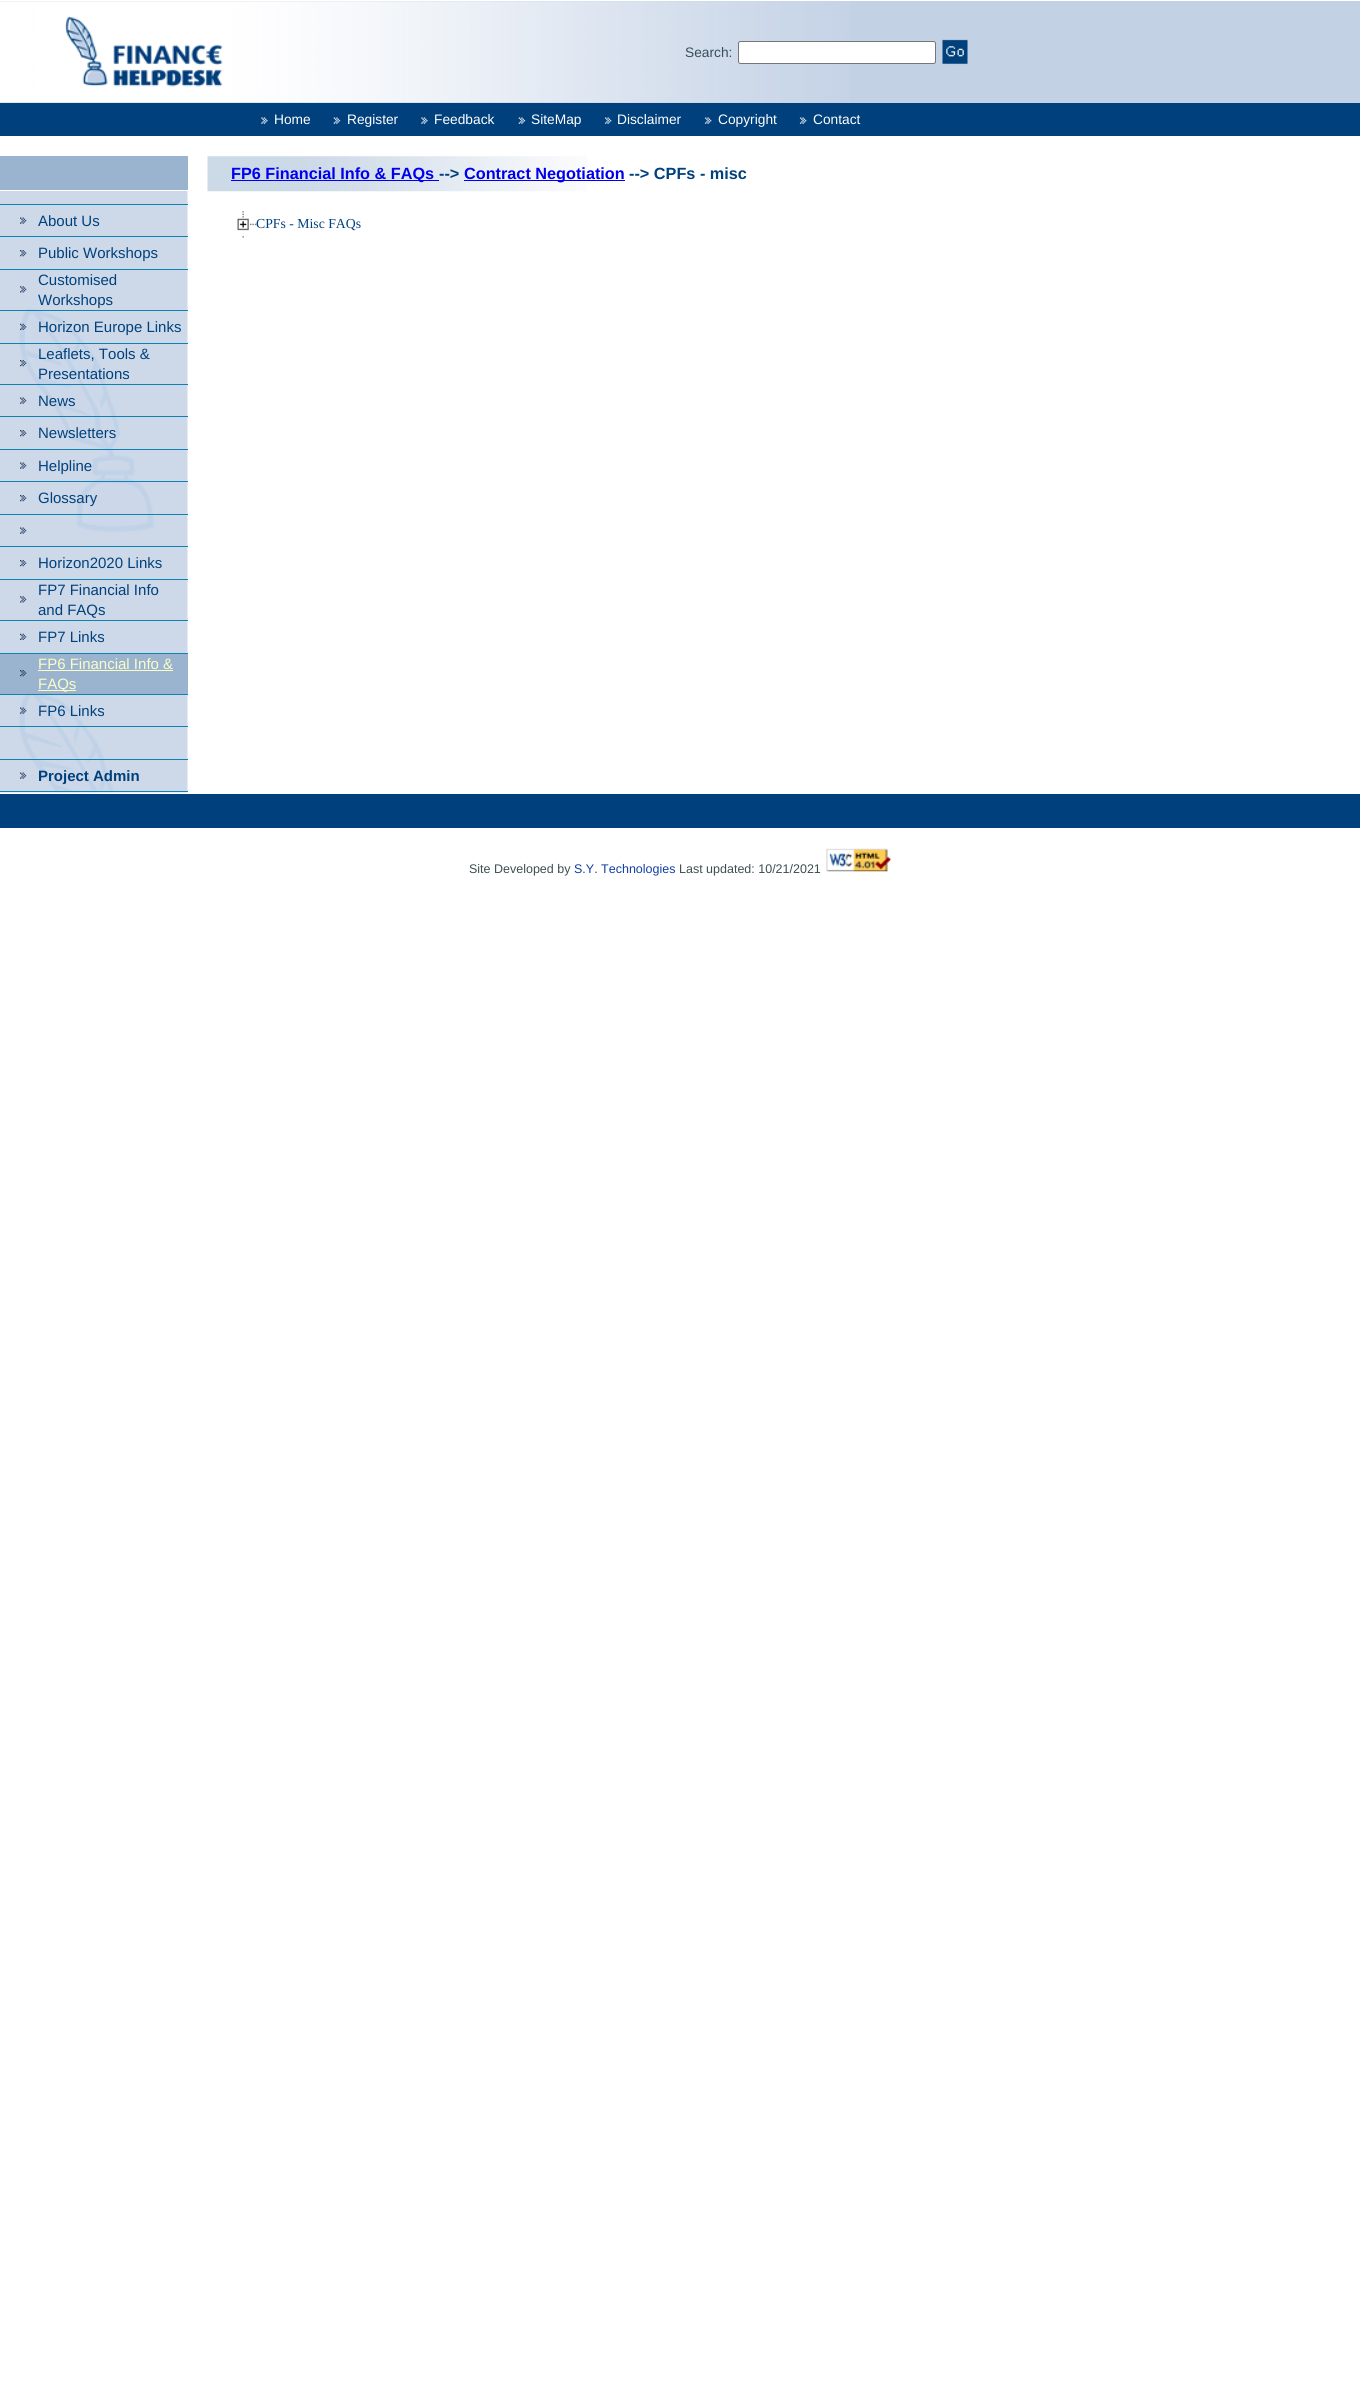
import math
import cairo

surface = cairo.ImageSurface(cairo.FORMAT_RGB24, 1360, 2399)
c = cairo.Context(surface)
options = cairo.FontOptions()
options.set_hint_metrics(cairo.HINT_METRICS_OFF)
options.set_hint_style(cairo.HINT_STYLE_NONE)
c.set_font_options(options)
c.set_miter_limit(4)
def C(code):
 c.set_source_rgb(*(v / 255 for v in bytes.fromhex(code[-6:])))
def F(family, size, italic, bold):
 c.select_font_face(family, cairo.FONT_SLANT_ITALIC if italic else cairo.FONT_SLANT_NORMAL, cairo.FONT_WEIGHT_BOLD if bold else cairo.FONT_WEIGHT_NORMAL)
 c.set_font_size(size)
def T(x, y, s):
 c.move_to(x, y)
 c.show_text(s)
def R(x, y, w, h):
 c.rectangle(x, y, w, h)
 c.fill()
def Q(x, y, w, h, r):
 c.new_sub_path()
 for i, (u, v) in enumerate([(x + w - r, y + h - r), (x + r, y + h - r), (x + r, y + r), (x + w - r, y + r)]):
  c.arc(u, v, r, i * math.pi / 2, (i + 1) * math.pi / 2)
 c.close_path()
def I(path, x, y, w, h):
 c.save()
 c.set_source_surface(cairo.ImageSurface.create_from_png(path), x, y)
 c.rectangle(x, y, w, h)
 c.fill()
 c.restore()
C('ffffff')
c.paint()
C('c2d1e4')
R(0,1,1360,102)
I('1.png',0,1,850,102)
I('2.png',65,16,158,71)
F('Liberation Sans',13.75,0,0)
C('374f5a')
T(685,57,'Search:')
C('ffffff')
Q(738.5,41.5,197,22,2)
c.fill_preserve()
C('767676')
c.set_line_width(1)
c.stroke()
I('3.png',942,39,26,26)
C('00407d')
R(0,103,1360,33)
I('4.png',261,117,7,7)
C('ffffff')
T(274,124,'Home')
I('5.png',333,117,8,7)
T(347,124,'Register')
I('4.png',421,117,7,7)
T(434,124,'Feedback')
I('5.png',518,117,8,7)
T(531,124,'SiteMap')
I('6.png',604,117,8,7)
T(617,124,'Disclaimer')
I('6.png',704,117,8,7)
T(718,124,'Copyright')
I('6.png',799,117,8,7)
T(813,124,'Contact')
I('7.png',207,156,380,36)
C('0000ee')
R(231,180,208,1)
F('Liberation Sans',16.25,0,1)
T(231,179,'FP6 Financial Info & FAQs')
C('00417c')
T(439,179,'-->')
C('0000ee')
R(464,180,161,1)
T(464,179,'Contract Negotiation')
C('00417c')
T(629,179,'--> CPFs - misc')
I('8.png',237,211,20,20)
F('Liberation Serif',13.75,0,0)
T(256,228,'CPFs - Misc FAQs')
I('9.png',242,236,2,2)
I('10.png',0,191,188,602)
C('9ab4cf')
R(0,156,188,34)
C('0e83b3')
R(0,204,188,1)
I('11.png',20,217,7,7)
F('Liberation Sans',15,0,0)
C('00417c')
T(38,226,'About Us')
C('0e83b3')
R(0,236,188,1)
I('12.png',20,250,7,7)
C('00417c')
T(38,258,'Public Workshops')
C('0e83b3')
R(0,269,188,1)
I('13.png',20,286,7,7)
C('00417c')
T(38,285,'Customised')
T(38,305,'Workshops')
C('0e83b3')
R(0,310,188,1)
I('14.png',20,323,7,7)
C('00417c')
T(38,332,'Horizon Europe Links')
C('0e83b3')
R(0,343,188,1)
I('15.png',20,360,7,7)
C('00417c')
T(38,359,'Leaflets, Tools &')
T(38,379,'Presentations')
C('0e83b3')
R(0,384,188,1)
I('11.png',20,397,7,7)
C('00417c')
T(38,406,'News')
C('0e83b3')
R(0,416,188,1)
I('12.png',20,430,7,7)
C('00417c')
T(38,438,'Newsletters')
C('0e83b3')
R(0,449,188,1)
I('11.png',20,462,7,7)
C('00417c')
T(38,471,'Helpline')
C('0e83b3')
R(0,481,188,1)
I('12.png',20,495,7,7)
C('00417c')
T(38,503,'Glossary')
C('0e83b3')
R(0,514,188,1)
I('11.png',20,527,7,7)
R(0,546,188,1)
I('12.png',20,560,7,7)
C('00417c')
T(38,568,'Horizon2020 Links')
C('0e83b3')
R(0,579,188,1)
I('13.png',20,596,7,7)
C('00417c')
T(38,595,'FP7 Financial Info')
T(38,615,'and FAQs')
C('0e83b3')
R(0,620,188,1)
I('16.png',20,633,7,7)
C('00417c')
T(38,642,'FP7 Links')
C('0e83b3')
R(0,653,188,1)
C('9ab4cf')
R(0,654,188,40)
I('17.png',20,670,7,7)
C('fcfcc6')
T(38,669,'FP6 Financial Info &')
R(38,670,135,1)
R(38,690,38,1)
T(38,689,'FAQs')
C('0e83b3')
R(0,694,188,1)
I('18.png',20,707,7,7)
C('00417c')
T(38,716,'FP6 Links')
C('0e83b3')
R(0,726,188,1)
R(0,759,188,1)
I('11.png',20,772,7,7)
F('Liberation Sans',15,0,1)
C('00417c')
T(38,781,'Project Admin')
C('0e83b3')
R(0,791,188,1)
C('00407d')
R(0,794,1360,34)
F('Liberation Sans',12.5,0,0)
C('3c4e50')
T(469,873,'Site Developed by')
C('113fa1')
T(574,873,'S.Y. Technologies')
C('3c4e50')
T(679,873,'Last updated: 10/21/2021')
I('19.png',826,848,66,24)
surface.write_to_png('o.png')
